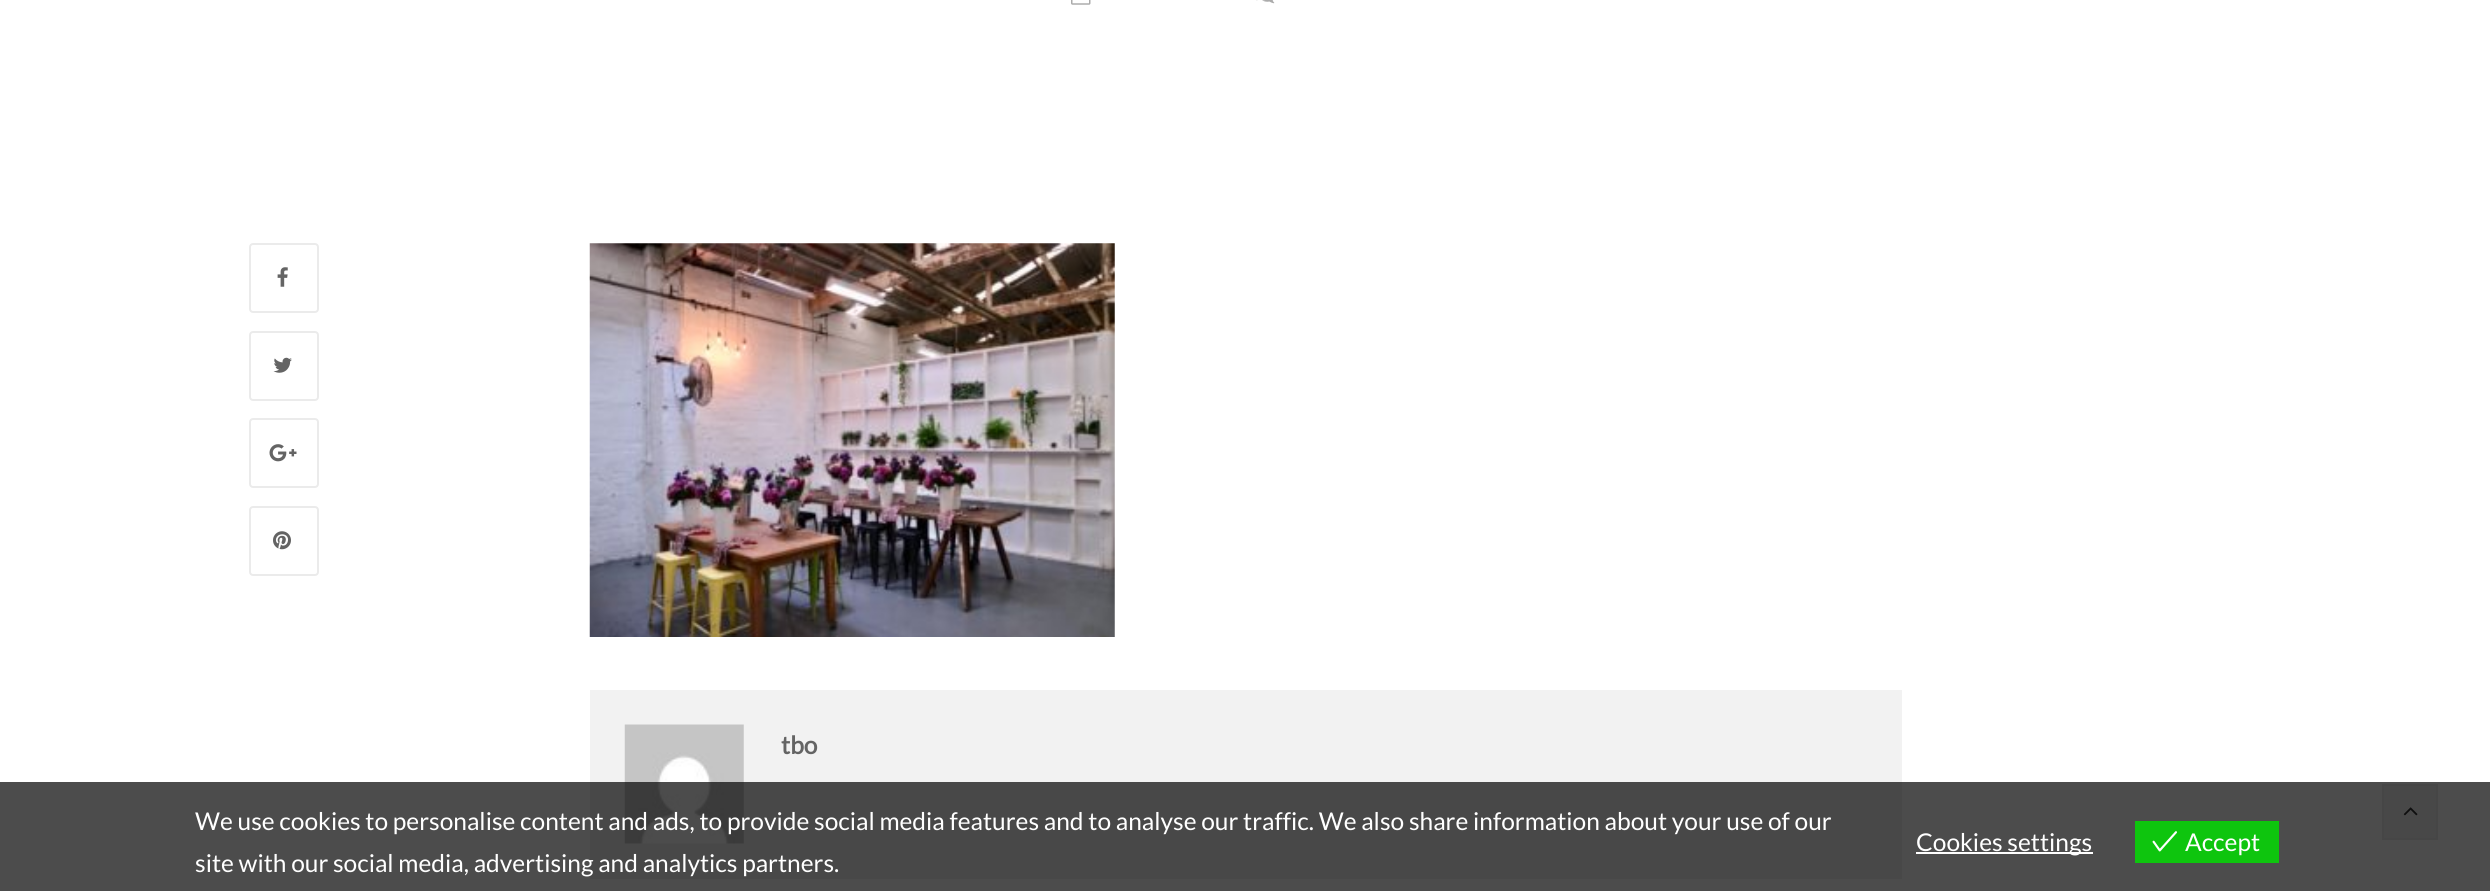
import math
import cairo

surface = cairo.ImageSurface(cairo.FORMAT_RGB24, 2490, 891)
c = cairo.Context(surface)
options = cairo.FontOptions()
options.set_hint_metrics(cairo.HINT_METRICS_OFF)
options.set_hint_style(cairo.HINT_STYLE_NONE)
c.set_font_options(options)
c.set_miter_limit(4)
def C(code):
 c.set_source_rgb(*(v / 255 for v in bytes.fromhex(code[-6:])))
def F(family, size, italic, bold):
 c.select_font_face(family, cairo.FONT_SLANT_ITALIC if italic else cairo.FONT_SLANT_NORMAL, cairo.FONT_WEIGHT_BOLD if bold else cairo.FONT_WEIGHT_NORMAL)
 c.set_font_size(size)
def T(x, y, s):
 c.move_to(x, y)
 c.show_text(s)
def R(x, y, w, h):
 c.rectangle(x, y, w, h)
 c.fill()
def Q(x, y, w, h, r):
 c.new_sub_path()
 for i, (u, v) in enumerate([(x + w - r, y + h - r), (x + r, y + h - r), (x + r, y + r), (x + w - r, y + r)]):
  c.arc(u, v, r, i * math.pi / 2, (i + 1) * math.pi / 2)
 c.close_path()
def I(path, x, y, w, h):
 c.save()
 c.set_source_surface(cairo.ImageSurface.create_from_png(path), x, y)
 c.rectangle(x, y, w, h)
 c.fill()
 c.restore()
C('ffffff')
c.paint()
I('1.png',1071,0,20,5)
I('2.png',1256,0,19,4)
Q(250,244,68,68,3)
C('ebebeb')
c.stroke()
I('3.png',277,267,11,20)
Q(250,332,68,68,3)
c.stroke()
I('4.png',273,357,19,16)
Q(250,419,68,68,3)
c.stroke()
I('5.png',269,444,28,18)
Q(250,507,68,68,3)
c.stroke()
I('6.png',273,531,18,19)
I('7.png',589,243,526,394)
C('f2f2f2')
R(590,690,1312,189)
I('8.png',624,724,120,120)
F('Lato',24.5,0,1)
C('646464')
T(781,754,'tbo')
C('f2f2f2')
c.rectangle(2383,785,54,54)
c.fill_preserve()
C('ebebeb')
c.stroke()
I('9.png',2403,807,15,9)
c.set_source_rgba(0,0,0,0.7)
R(0,782,2490,109)
F('Lato',24.5,0,0)
C('ffffff')
T(195,830,'We use cookies to personalise content and ads, to provide social media features and to analyse our traffic. We also share information about your use of our')
T(195,872,'site with our social media, advertising and analytics partners.')
R(1916,852,177,2)
T(1916,851,'Cookies settings')
C('0ec50e')
R(2135,821,144,42)
I('10.png',2152,831,25,21)
C('ffffff')
T(2185,851,'Accept')
surface.write_to_png('o.png')
